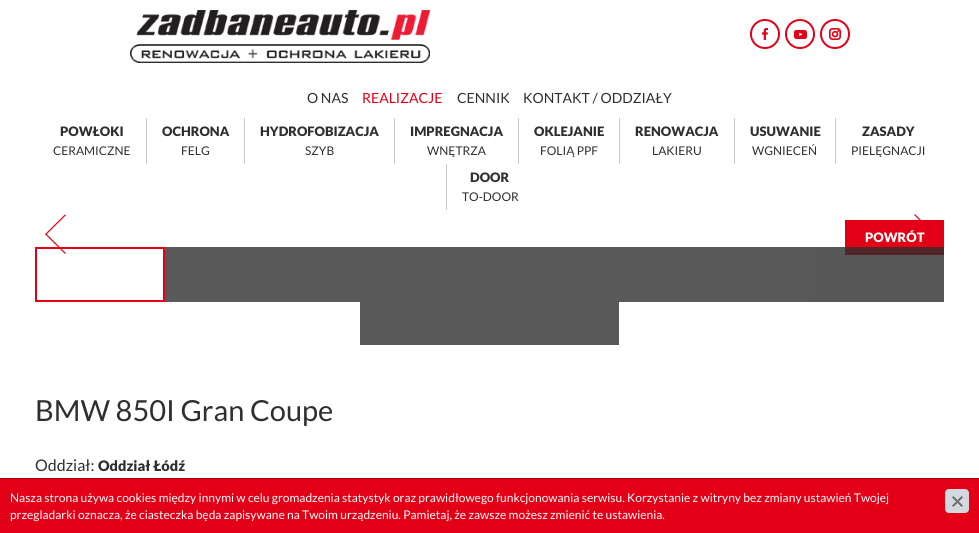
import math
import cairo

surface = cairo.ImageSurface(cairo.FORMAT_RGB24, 979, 533)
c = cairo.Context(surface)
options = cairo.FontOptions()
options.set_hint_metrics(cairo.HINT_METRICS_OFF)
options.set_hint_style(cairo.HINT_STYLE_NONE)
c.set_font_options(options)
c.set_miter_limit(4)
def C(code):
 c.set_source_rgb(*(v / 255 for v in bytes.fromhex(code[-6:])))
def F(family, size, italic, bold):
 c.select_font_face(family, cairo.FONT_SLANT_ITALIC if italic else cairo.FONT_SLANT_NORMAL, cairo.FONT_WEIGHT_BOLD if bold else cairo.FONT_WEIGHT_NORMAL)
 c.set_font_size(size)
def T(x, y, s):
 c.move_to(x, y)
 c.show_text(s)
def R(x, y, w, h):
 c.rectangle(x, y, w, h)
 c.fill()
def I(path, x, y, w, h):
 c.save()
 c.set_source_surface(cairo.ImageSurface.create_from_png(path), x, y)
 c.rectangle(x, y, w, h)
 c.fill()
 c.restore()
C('ffffff')
c.paint()
I('1.png',130,10,300,53)
I('2.png',750,19,30,30)
I('3.png',785,19,30,30)
I('4.png',820,19,30,30)
F('Lato',14,0,0)
C('2f2f2f')
T(307,103,'O NAS')
C('e30016')
T(362,103,'REALIZACJE')
C('2f2f2f')
T(457,103,'CENNIK')
T(523,103,'KONTAKT / ODDZIAŁY')
F('Lato Black',13,0,0)
T(60,136,'POWŁOKI')
F('Lato',12,0,0)
T(53,155,'CERAMICZNE')
C('c9c9c9')
R(146,118,1,46)
F('Lato Black',13,0,0)
C('2f2f2f')
T(162,136,'OCHRONA')
F('Lato',12,0,0)
T(181,155,'FELG')
C('c9c9c9')
R(244,118,1,46)
F('Lato Black',13,0,0)
C('2f2f2f')
T(260,136,'HYDROFOBIZACJA')
F('Lato',12,0,0)
T(305,155,'SZYB')
C('c9c9c9')
R(394,118,1,46)
F('Lato Black',13,0,0)
C('2f2f2f')
T(410,136,'IMPREGNACJA')
F('Lato',12,0,0)
T(427,155,'WNĘTRZA')
C('c9c9c9')
R(518,118,1,46)
F('Lato Black',13,0,0)
C('2f2f2f')
T(534,136,'OKLEJANIE')
F('Lato',12,0,0)
T(540,155,'FOLIĄ PPF')
C('c9c9c9')
R(619,118,1,46)
F('Lato Black',13,0,0)
C('2f2f2f')
T(635,136,'RENOWACJA')
F('Lato',12,0,0)
T(652,155,'LAKIERU')
C('c9c9c9')
R(734,118,1,46)
F('Lato Black',13,0,0)
C('2f2f2f')
T(750,136,'USUWANIE')
F('Lato',12,0,0)
T(752,155,'WGNIECEŃ')
C('c9c9c9')
R(835,118,1,46)
F('Lato Black',13,0,0)
C('2f2f2f')
T(862,136,'ZASADY')
F('Lato',12,0,0)
T(851,155,'PIELĘGNACJI')
C('c9c9c9')
R(446,164,1,46)
F('Lato Black',13,0,0)
C('2f2f2f')
T(470,182,'DOOR')
F('Lato',12,0,0)
T(462,201,'TO-DOOR')
I('5.png',45,214,21,40)
I('6.png',914,214,7,6)
C('e30016')
R(845,220,99,35)
F('Lato Black',13,0,0)
C('ffffff')
T(865,242,'POWRÓT')
c.rectangle(36,248,128,53)
C('e30016')
c.stroke()
C('595959')
R(165,247,649,55)
c.set_source_rgba(0.184,0.184,0.184,0.8)
R(814,247,130,55)
C('595959')
R(360,302,259,43)
F('Lato',29,0,0)
C('2f2f2f')
T(35,421,'BMW 850I Gran Coupe')
F('Lato',16,0,0)
T(35,471,'Oddział:')
F('Lato Black',14.5,0,0)
T(98,471,'Oddział Łódź')
C('e30016')
R(0,479,979,54)
C('b00011')
R(0,478,979,1)
F('Lato',12,0,0)
C('ffffff')
T(10,502,'Nasza strona używa cookies między innymi w celu gromadzenia statystyk oraz prawidłowego funkcjonowania serwisu. Korzystanie z witryny bez zmiany ustawień Twojej')
I('7.png',945,489,24,24)
T(10,519,'przegladarki oznacza, że ciasteczka będa zapisywane na Twoim urządzeniu. Pamietaj, że zawsze możesz zmienić te ustawienia.')
surface.write_to_png('o.png')
